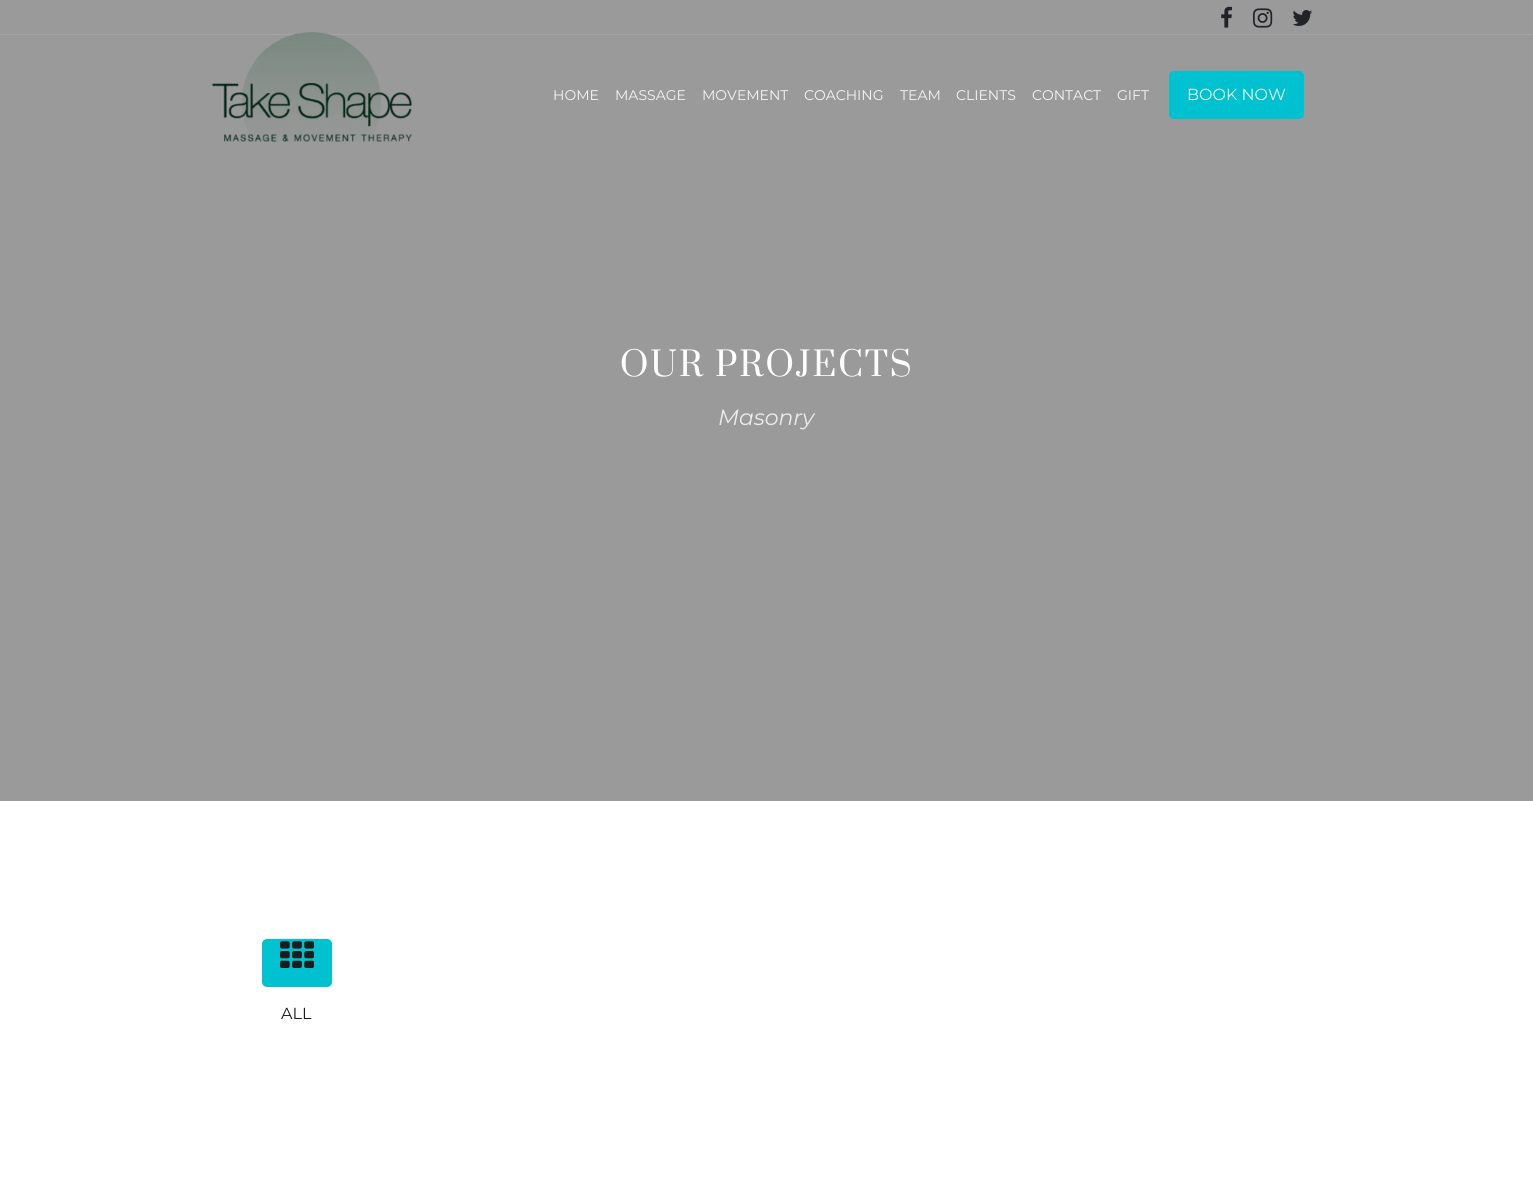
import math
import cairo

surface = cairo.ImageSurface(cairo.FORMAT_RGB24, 1533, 1203)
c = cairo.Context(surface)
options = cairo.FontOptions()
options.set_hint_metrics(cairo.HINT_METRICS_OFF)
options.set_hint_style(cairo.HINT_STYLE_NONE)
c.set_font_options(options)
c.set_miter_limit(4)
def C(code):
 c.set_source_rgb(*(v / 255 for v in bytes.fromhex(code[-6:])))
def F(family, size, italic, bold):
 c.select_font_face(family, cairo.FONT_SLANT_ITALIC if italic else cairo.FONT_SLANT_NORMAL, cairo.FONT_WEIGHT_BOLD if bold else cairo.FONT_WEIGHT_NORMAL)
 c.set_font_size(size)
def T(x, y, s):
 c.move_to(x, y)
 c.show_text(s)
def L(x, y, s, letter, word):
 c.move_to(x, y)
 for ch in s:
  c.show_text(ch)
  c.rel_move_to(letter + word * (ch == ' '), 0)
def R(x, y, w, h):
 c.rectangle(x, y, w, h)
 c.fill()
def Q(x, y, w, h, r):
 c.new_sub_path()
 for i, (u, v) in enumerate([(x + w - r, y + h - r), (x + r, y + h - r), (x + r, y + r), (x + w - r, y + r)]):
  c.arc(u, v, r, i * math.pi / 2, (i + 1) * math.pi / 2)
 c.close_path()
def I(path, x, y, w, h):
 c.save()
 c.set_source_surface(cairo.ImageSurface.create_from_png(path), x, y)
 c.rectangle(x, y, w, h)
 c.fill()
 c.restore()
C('ffffff')
c.paint()
C('9a9a9a')
R(0,0,1533,801)
C('a4a4a4')
R(0,34,1533,1)
I('1.png',1221,6,11,22)
I('2.png',1253,8,20,20)
I('3.png',1292,10,20,16)
I('4.png',211,32,202,110)
F('Montserrat Thin',14,0,0)
C('f5f5f5')
T(553,100,'HOME')
T(615,100,'MASSAGE')
T(702,100,'MOVEMENT')
T(804,100,'COACHING')
T(900,100,'TEAM')
T(956,100,'CLIENTS')
T(1032,100,'CONTACT')
T(1117,100,'GIFT')
C('00c1cf')
Q(1169,71,135,48,5)
c.fill()
F('Montserrat Thin',16,0,0)
C('e6f9fa')
T(1187,100,'BOOK NOW')
F('Suranna',42,0,0)
C('ffffff')
L(620,376,'OUR PROJECTS',2,0)
F('Montserrat Thin',22,1,0)
C('ebebeb')
T(718,425,'Masonry')
C('00c1cf')
Q(262,939,70,48,5)
c.fill()
I('5.png',280,941,34,27)
F('Montserrat Thin',16,0,0)
C('1c1c1c')
T(281,1019,'ALL')
surface.write_to_png('o.png')
